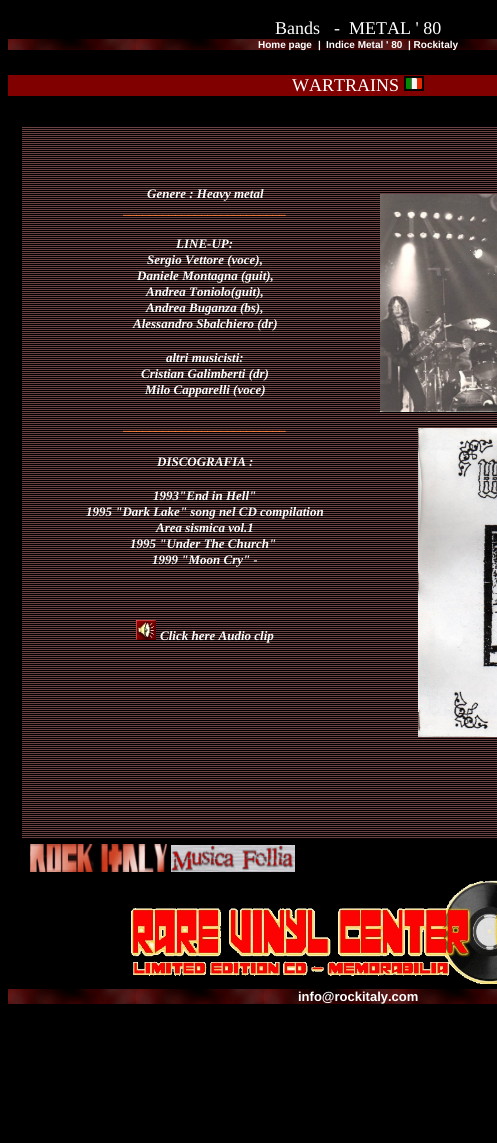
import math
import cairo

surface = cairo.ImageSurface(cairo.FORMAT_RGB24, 497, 1143)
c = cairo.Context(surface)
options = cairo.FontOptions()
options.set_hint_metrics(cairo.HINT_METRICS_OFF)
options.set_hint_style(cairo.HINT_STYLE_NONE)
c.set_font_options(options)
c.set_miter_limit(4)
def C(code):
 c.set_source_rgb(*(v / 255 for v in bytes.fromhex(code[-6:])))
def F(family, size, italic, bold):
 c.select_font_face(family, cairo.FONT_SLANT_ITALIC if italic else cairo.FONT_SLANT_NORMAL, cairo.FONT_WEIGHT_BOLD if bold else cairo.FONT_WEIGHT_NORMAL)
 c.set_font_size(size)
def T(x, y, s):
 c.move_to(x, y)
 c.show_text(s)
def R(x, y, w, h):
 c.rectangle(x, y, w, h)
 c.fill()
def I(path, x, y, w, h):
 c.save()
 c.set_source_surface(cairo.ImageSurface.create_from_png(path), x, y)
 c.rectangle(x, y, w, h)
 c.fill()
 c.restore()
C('000000')
c.paint()
F('Liberation Serif',18,0,0)
C('ffffff')
T(275,34,'Bands')
T(334,34,'-  METAL \' 80')
I('1.png',8,39,489,11)
F('Liberation Sans',10,0,1)
T(258,48,'Home page')
T(318,48,'|')
T(326,48,'Indice Metal \' 80')
T(408,48,'| Rockitaly')
C('800000')
R(8,75,489,21)
F('Liberation Serif',18,0,0)
C('ffffff')
T(292,91,'WARTRAINS')
I('2.png',404,76,20,15)
I('3.png',22,127,8,711)
I('4.png',30,127,350,711)
F('Liberation Serif',13,1,1)
T(147,198,'Genere : Heavy metal')
C('ff8040')
T(124,214,'_________________________')
C('ffffff')
T(176,248,'LINE-UP:')
T(147,264,'Sergio Vettore (voce),')
T(137,280,'Daniele Montagna (guit),')
T(146,296,'Andrea Toniolo(guit),')
T(146,312,'Andrea Buganza (bs),')
T(133,328,'Alessandro Sbalchiero (dr)')
T(166,362,'altri musicisti:')
T(141,378,'Cristian Galimberti (dr)')
T(145,394,'Milo Capparelli (voce)')
C('ff8040')
T(124,430,'_________________________')
C('ffffff')
T(157,466,'DISCOGRAFIA :')
T(153,500,'1993"End in Hell"')
T(86,516,'1995 "Dark Lake" song nel CD compilation')
T(156,532,'Area sismica vol.1')
T(130,548,'1995 "Under The Church"')
T(152,564,'1999 "Moon Cry" -')
I('5.png',136,620,20,20)
T(160,640,'Click here Audio clip')
I('6.png',380,127,117,711)
I('7.png',380,194,117,218)
I('8.png',418,428,79,309)
I('9.png',30,844,137,28)
I('10.png',171,845,124,27)
I('11.png',131,880,366,104)
I('12.png',8,989,489,15)
F('Liberation Sans',13,0,1)
T(298,1001,'info@rockitaly.com')
surface.write_to_png('o.png')
